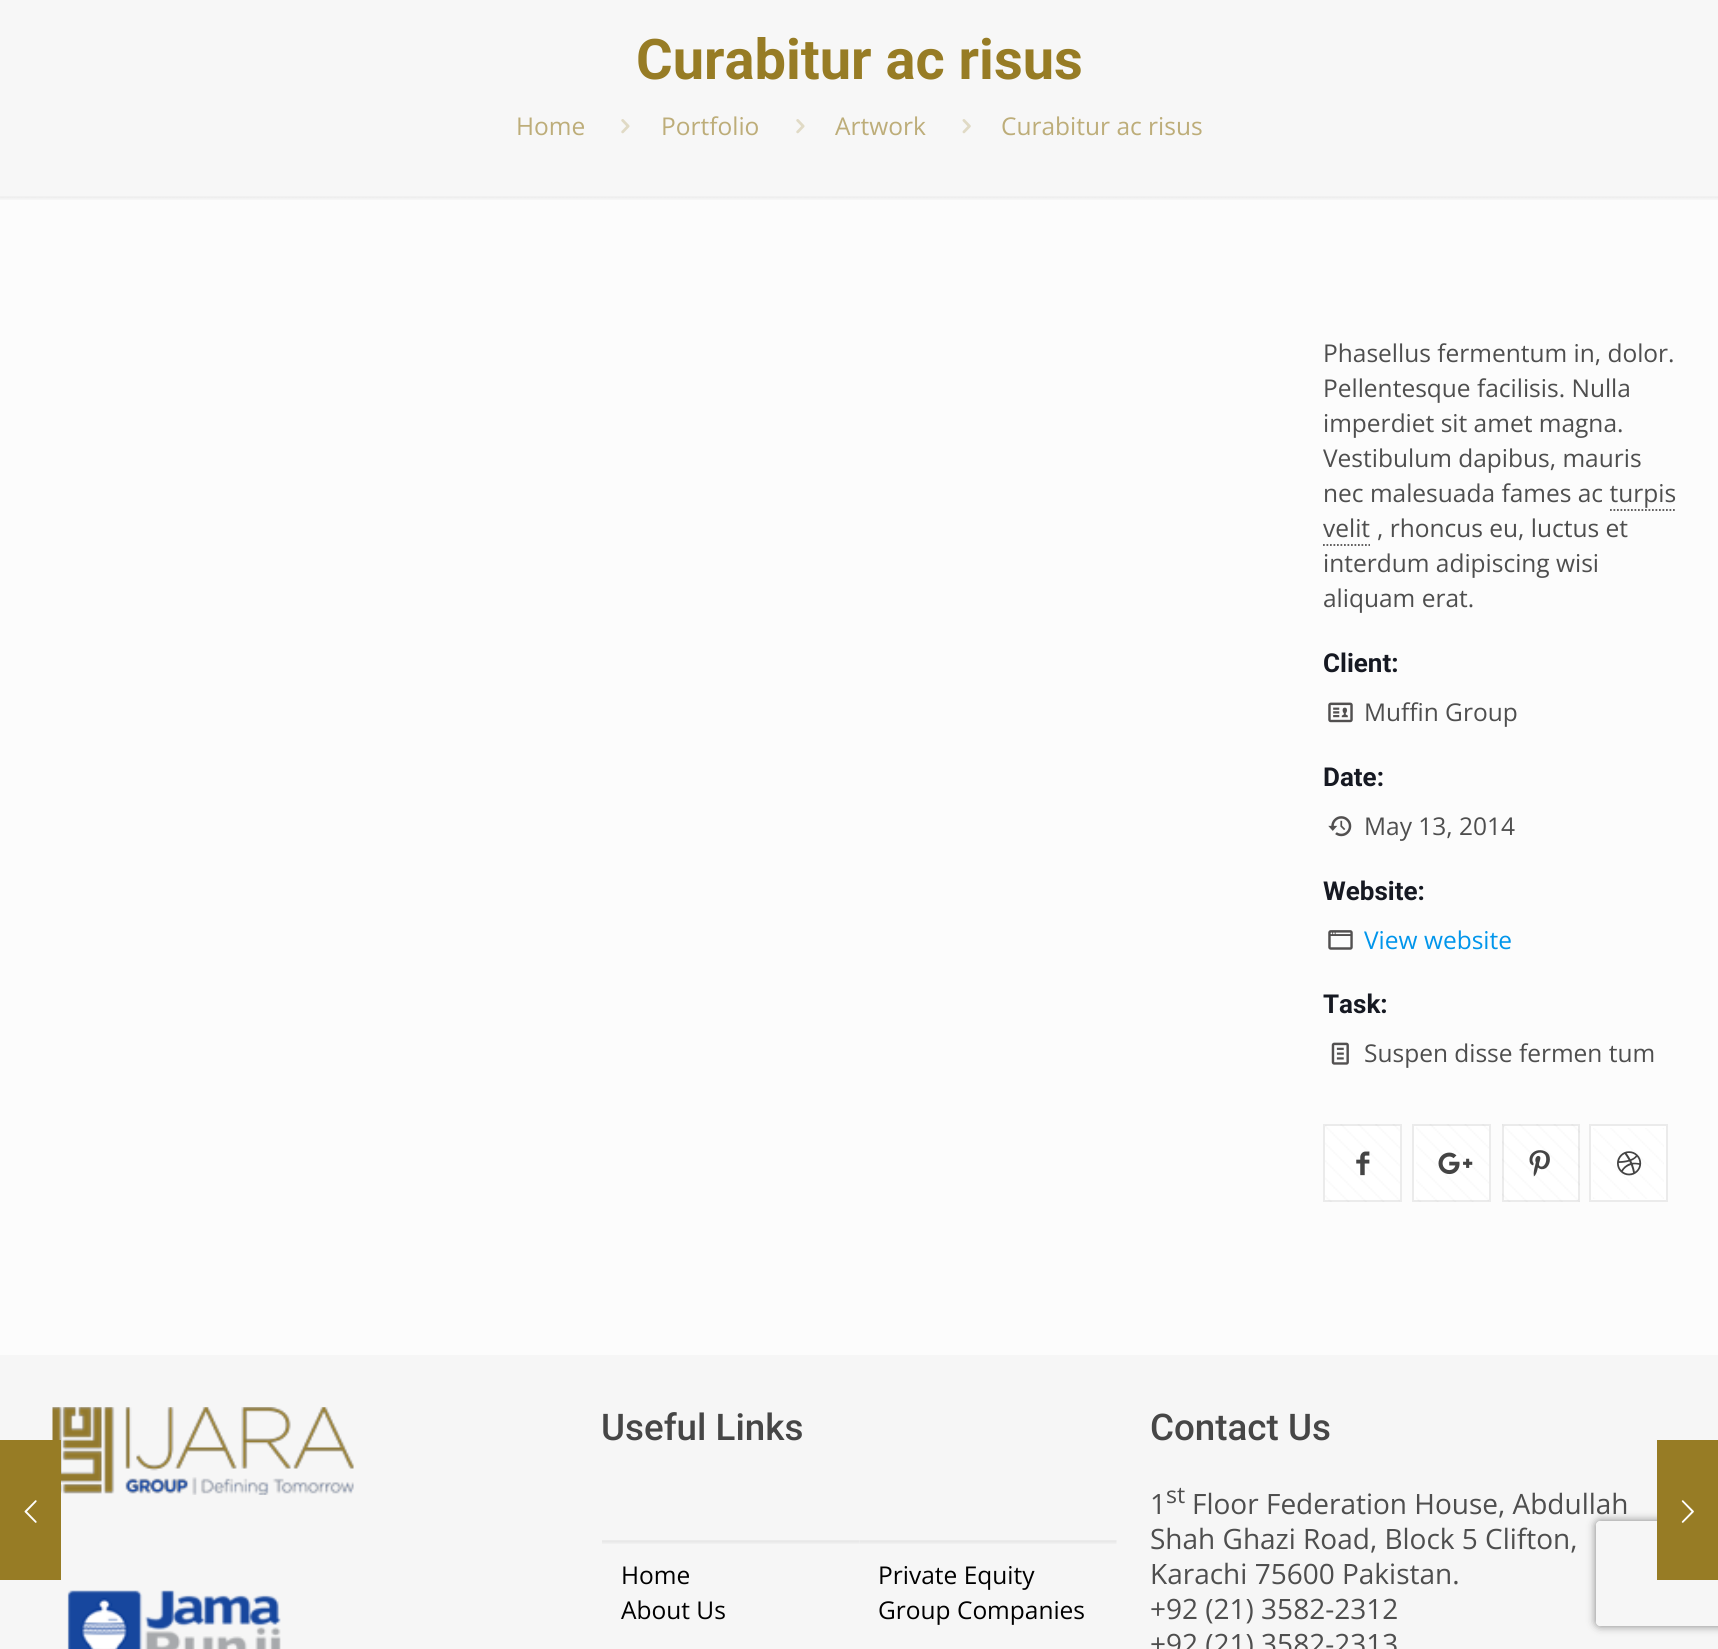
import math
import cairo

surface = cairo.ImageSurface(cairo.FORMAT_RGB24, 1718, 1649)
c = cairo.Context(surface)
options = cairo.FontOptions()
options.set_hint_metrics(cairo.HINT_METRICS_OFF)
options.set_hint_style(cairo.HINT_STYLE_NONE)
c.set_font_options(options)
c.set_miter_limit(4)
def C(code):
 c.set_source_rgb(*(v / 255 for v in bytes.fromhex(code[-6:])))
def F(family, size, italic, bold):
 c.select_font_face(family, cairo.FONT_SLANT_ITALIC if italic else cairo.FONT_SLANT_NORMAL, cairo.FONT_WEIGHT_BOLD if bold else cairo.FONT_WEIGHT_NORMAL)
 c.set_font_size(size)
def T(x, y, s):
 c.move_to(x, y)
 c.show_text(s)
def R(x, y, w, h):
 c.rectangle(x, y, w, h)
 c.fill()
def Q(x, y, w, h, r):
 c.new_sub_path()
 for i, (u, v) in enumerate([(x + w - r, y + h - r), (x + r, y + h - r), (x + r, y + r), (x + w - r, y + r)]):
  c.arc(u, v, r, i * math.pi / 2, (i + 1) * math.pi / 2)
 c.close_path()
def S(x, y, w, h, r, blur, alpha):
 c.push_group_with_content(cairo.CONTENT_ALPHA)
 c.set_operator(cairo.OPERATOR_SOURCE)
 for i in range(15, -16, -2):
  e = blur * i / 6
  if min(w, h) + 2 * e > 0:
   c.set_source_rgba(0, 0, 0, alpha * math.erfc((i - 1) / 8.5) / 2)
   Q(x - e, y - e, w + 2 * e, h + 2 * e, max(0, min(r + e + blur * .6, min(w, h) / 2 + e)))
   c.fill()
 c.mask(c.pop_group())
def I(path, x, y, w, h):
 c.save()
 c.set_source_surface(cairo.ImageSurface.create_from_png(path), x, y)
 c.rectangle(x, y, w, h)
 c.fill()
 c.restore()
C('fcfcfc')
c.paint()
C('f6f6f6')
R(0,1355,1718,294)
I('17.png',52,1407,302,88)
C('977c25')
R(0,1440,61,140)
I('1.png',24,1500,13,23)
C('f7f7f7')
R(0,0,1718,196)
F('Roboto',56,0,1)
C('977c25')
T(636,79,'Curabitur ac risus')
F('Open Sans',24.5,0,0)
C('bdad79')
T(516,135,'Home')
I('2.png',621,119,9,15)
T(661,135,'Portfolio')
I('2.png',796,119,9,15)
T(835,135,'Artwork')
I('3.png',962,119,9,15)
T(1001,135,'Curabitur ac risus')
I('4.png',0,196,1718,4)
C('4e4e4e')
T(1323,362,'Phasellus fermentum in, dolor.')
T(1323,397,'Pellentesque facilisis. Nulla')
T(1323,432,'imperdiet sit amet magna.')
T(1323,467,'Vestibulum dapibus, mauris')
T(1323,502,'nec malesuada fames ac turpis')
T(1323,537,'velit')
c.new_path()
c.move_to(1610,510)
c.line_to(1676.5,510)
C('525050')
c.set_line_width(1.8)
c.set_dash([1.75,1.75])
c.stroke()
c.new_path()
c.move_to(1323,545)
c.line_to(1370,545)
c.stroke()
C('4e4e4e')
T(1377,537,', rhoncus eu, luctus et')
T(1323,572,'interdum adipiscing wisi')
T(1323,607,'aliquam erat.')
F('Roboto',26,0,1)
C('161922')
T(1323,672,'Client:')
I('5.png',1328,702,25,21)
F('Open Sans',24.5,0,0)
C('4e4e4e')
T(1364,721,'Muffin Group')
F('Roboto',26,0,1)
C('161922')
T(1323,786,'Date:')
I('6.png',1328,816,24,21)
F('Open Sans',24.5,0,0)
C('4e4e4e')
T(1364,835,'May 13, 2014')
F('Roboto',26,0,1)
C('161922')
T(1323,900,'Website:')
I('7.png',1328,930,25,20)
F('Open Sans',24.5,0,0)
C('0095eb')
T(1364,949,'View website')
F('Roboto',26,0,1)
C('161922')
T(1323,1013,'Task:')
I('8.png',1331,1042,18,23)
F('Open Sans',24.5,0,0)
C('4e4e4e')
T(1364,1062,'Suspen disse fermen tum')
C('ffffff')
R(1323,1124,79,78)
I('9.png',1325,1124,75,78)
c.rectangle(1324,1125,77,76)
c.set_source_rgba(0,0,0,0.08)
c.set_line_width(2)
c.set_dash([])
c.stroke()
I('10.png',1356,1151,14,25)
C('ffffff')
R(1412,1124,79,78)
I('11.png',1416,1124,73,78)
c.rectangle(1413,1125,77,76)
c.set_source_rgba(0,0,0,0.08)
c.stroke()
I('12.png',1438,1152,35,23)
C('ffffff')
R(1502,1124,78,78)
I('13.png',1502,1124,78,78)
c.rectangle(1503,1125,76,76)
c.set_source_rgba(0,0,0,0.08)
c.stroke()
I('14.png',1529,1150,21,27)
C('ffffff')
R(1589,1124,79,78)
I('15.png',1593,1128,71,71)
c.rectangle(1590,1125,77,76)
c.set_source_rgba(0,0,0,0.08)
c.stroke()
I('16.png',1617,1151,25,25)
I('18.png',67,1590,214,59)
F('Roboto Medium',36.75,0,0)
C('464646')
T(601,1440,'Useful Links')
I('19.png',602,1540,257,4)
F('Open Sans',24.5,0,0)
C('000000')
T(621,1584,'Home')
T(621,1619,'About Us')
I('20.png',859,1540,258,4)
T(878,1584,'Private Equity')
T(878,1619,'Group Companies')
F('Roboto Medium',36.75,0,0)
C('464646')
T(1150,1440,'Contact Us')
F('Open Sans',28,0,0)
C('4e4e4e')
T(1150,1514,'1')
F('Open Sans',23,0,0)
T(1166,1503,'st')
F('Open Sans',28,0,0)
T(1192,1514,'Floor Federation House, Abdullah')
T(1150,1549,'Shah Ghazi Road, Block 5 Clifton,')
T(1150,1584,'Karachi 75600 Pakistan.')
T(1150,1619,'+92 (21) 3582-2312')
T(1150,1654,'+92 (21) 3582-2313')
c.save()
c.set_fill_rule(cairo.FILL_RULE_EVEN_ODD)
c.new_path()
c.move_to(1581,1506)
c.line_to(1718,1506)
c.line_to(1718,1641)
c.line_to(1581,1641)
c.close_path()
c.move_to(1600,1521)
c.line_to(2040,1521)
c.curve_to(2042,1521,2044,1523,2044,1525)
c.line_to(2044,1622)
c.curve_to(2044,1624,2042,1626,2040,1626)
c.line_to(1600,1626)
c.curve_to(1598,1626,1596,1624,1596,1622)
c.line_to(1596,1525)
c.curve_to(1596,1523,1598,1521,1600,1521)
c.close_path()
c.clip()
C('808080')
S(1596,1521,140,105,4,4.5,1)
c.restore()
C('977c25')
R(1657,1440,61,140)
I('21.png',1681,1500,13,23)
surface.write_to_png('o.png')
